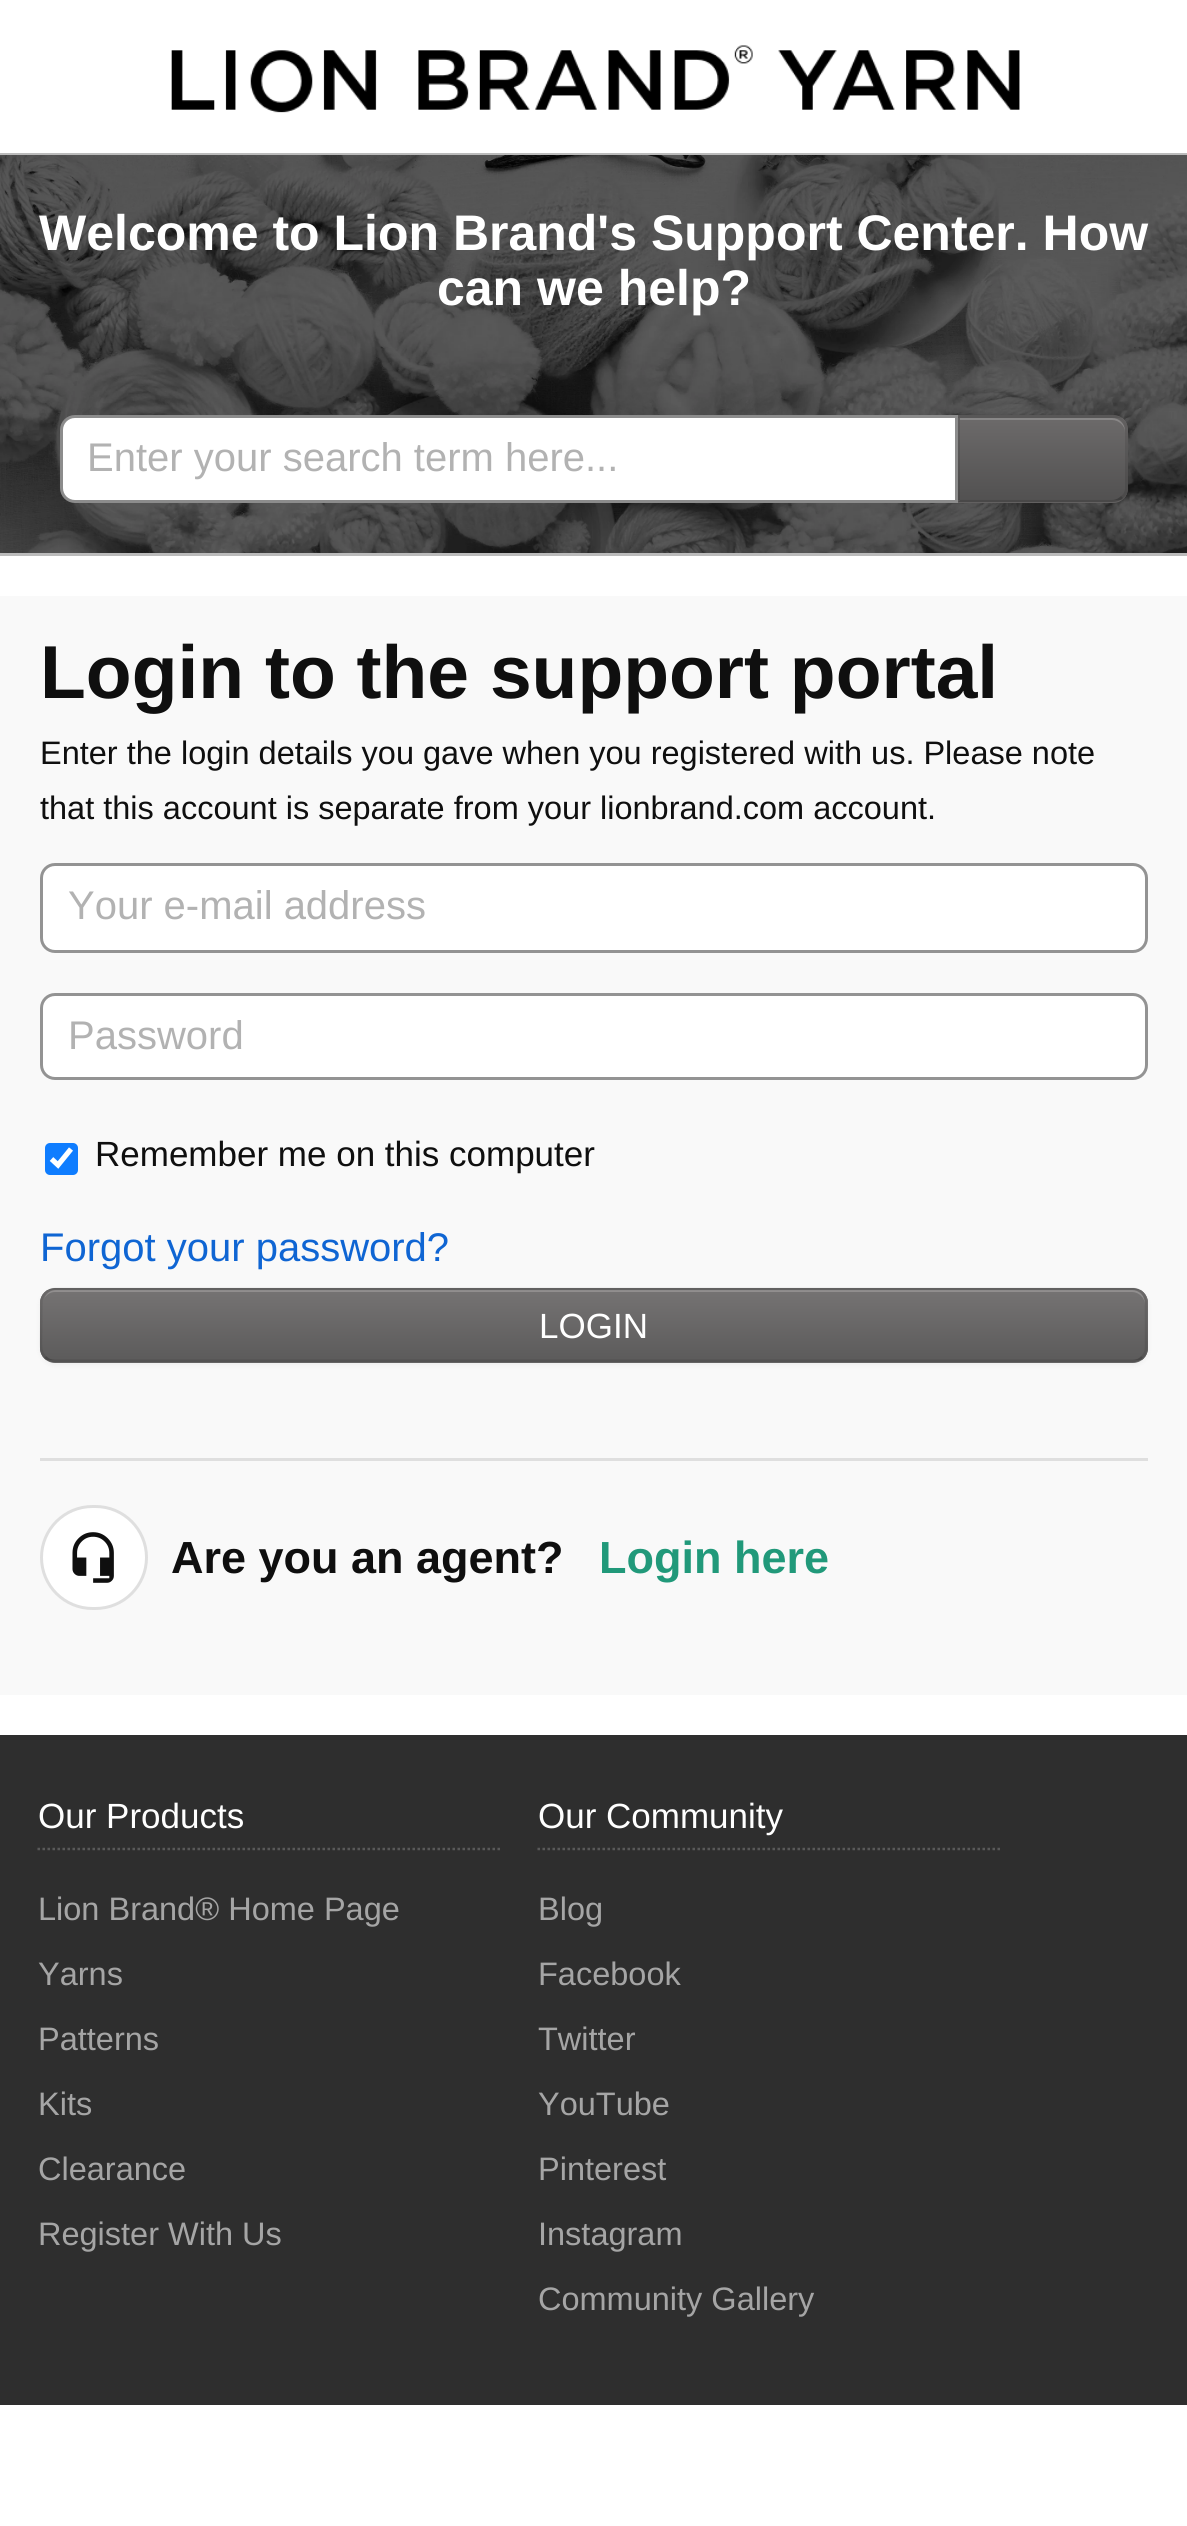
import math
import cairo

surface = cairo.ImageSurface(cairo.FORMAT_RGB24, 1187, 2526)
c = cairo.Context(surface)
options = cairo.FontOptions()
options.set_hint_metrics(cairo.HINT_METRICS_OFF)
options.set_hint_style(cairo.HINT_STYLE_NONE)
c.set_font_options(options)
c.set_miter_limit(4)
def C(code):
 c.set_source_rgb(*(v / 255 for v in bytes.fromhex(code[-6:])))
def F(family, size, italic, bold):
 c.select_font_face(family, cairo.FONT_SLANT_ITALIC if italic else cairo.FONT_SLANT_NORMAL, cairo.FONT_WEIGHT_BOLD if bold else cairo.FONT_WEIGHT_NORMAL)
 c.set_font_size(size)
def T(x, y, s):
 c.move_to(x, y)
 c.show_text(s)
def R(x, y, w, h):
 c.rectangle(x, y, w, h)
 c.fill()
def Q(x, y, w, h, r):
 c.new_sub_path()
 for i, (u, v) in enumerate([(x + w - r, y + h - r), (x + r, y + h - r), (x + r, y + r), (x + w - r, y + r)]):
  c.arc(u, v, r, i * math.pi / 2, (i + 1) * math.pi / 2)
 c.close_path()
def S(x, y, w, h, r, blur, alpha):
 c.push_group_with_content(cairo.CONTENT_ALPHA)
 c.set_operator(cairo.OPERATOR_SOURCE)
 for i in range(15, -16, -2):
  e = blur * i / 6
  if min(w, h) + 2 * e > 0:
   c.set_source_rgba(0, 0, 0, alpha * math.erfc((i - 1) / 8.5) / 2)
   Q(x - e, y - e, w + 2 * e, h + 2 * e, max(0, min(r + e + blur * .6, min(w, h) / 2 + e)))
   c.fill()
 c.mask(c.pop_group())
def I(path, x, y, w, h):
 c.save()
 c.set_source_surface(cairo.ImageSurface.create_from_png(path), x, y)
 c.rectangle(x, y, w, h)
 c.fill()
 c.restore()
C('ffffff')
c.paint()
C('bbbbbb')
R(0,153,1187,2)
I('1.png',171,45,849,68)
I('2.png',0,155,1187,398)
R(0,553,1187,3)
F('Liberation Sans',50,0,1)
C('ffffff')
T(39,250,'Welcome to Lion Brand\'s Support Center. How')
T(437,305,'can we help?')
c.new_path()
c.move_to(75,416.5)
c.line_to(956.5,416.5)
c.line_to(956.5,501.5)
c.line_to(75,501.5)
c.curve_to(67.5,501.5,61.5,495.5,61.5,488)
c.line_to(61.5,430)
c.curve_to(61.5,422.5,67.5,416.5,75,416.5)
c.close_path()
c.fill_preserve()
C('8c8c8c')
c.set_line_width(3)
c.stroke()
F('Liberation Sans',40,0,0)
C('b2b2b2')
T(87,471,'Enter your search term here...')
C('626060')
c.new_path()
c.move_to(958,415)
c.line_to(1113,415)
c.curve_to(1121.5,415,1128,421.5,1128,430)
c.line_to(1128,488)
c.curve_to(1128,496.5,1121.5,503,1113,503)
c.line_to(958,503)
c.close_path()
c.fill()
c.save()
c.new_path()
c.move_to(958,415)
c.line_to(1113,415)
c.curve_to(1121.5,415,1128,421.5,1128,430)
c.line_to(1128,488)
c.curve_to(1128,496.5,1121.5,503,1113,503)
c.line_to(958,503)
c.close_path()
c.clip()
gradient = cairo.LinearGradient(1043,418,1043,500)
gradient.add_color_stop_rgba(0,0.424,0.416,0.416,1)
gradient.add_color_stop_rgba(1,0.322,0.318,0.318,1)
c.set_source(gradient)
R(958,418,170,82)
c.restore()
c.set_source_rgba(1,1,1,0.2)
c.new_path()
c.move_to(960,420)
c.line_to(1112,420)
c.curve_to(1119,420,1125,426,1125,432)
c.line_to(1125,431)
c.curve_to(1125,424,1119,418,1112,418)
c.line_to(960,418)
c.close_path()
c.fill()
c.set_source_rgba(0,0,0,0.1)
c.new_path()
c.move_to(958,415)
c.line_to(960,418)
c.line_to(1112,418)
c.curve_to(1116,418,1119,419,1121,421)
c.line_to(1123,419)
c.curve_to(1120,417,1116,415,1112,415)
c.close_path()
c.fill()
c.new_path()
c.move_to(1128,492)
c.curve_to(1127,494,1125,496,1123,498)
c.line_to(1121,496)
c.curve_to(1124,494,1125,491,1125,488)
c.line_to(1125,430)
c.curve_to(1125,426,1124,424,1121,421)
c.line_to(1123,419)
c.curve_to(1125,421,1127,424,1128,426)
c.close_path()
c.fill()
c.set_source_rgba(0,0,0,0.25)
c.new_path()
c.move_to(1123,498)
c.curve_to(1120,501,1116,502,1112,502)
c.line_to(958,502)
c.line_to(960,500)
c.line_to(1112,500)
c.curve_to(1116,500,1119,498,1121,496)
c.close_path()
c.fill()
c.set_source_rgba(0,0,0,0.1)
c.new_path()
c.move_to(960,418)
c.line_to(958,416)
c.line_to(958,502)
c.line_to(960,500)
c.close_path()
c.fill()
C('f9f9f9')
R(0,596,1187,1099)
F('Liberation Sans',75,0,1)
C('0f0f0f')
T(40,698,'Login to the support portal')
F('Liberation Sans',32.5,0,0)
T(40,764,'Enter the login details you gave when you registered with us. Please note')
T(40,819,'that this account is separate from your lionbrand.com account.')
C('ffffff')
Q(41.5,864.5,1105,87,13.5)
c.fill_preserve()
C('939393')
c.stroke()
F('Liberation Sans',40,0,0)
C('b2b2b2')
T(68,919,'Your e-mail address')
C('ffffff')
Q(41.5,994.5,1105,84,13.5)
c.fill_preserve()
C('939393')
c.stroke()
C('b2b2b2')
T(68,1049,'Password')
C('0f7dff')
Q(45,1143,33,32,5)
c.fill()
c.new_path()
c.move_to(51.5,1159)
c.line_to(58,1165)
c.line_to(71,1149)
C('ffffff')
c.set_line_width(5.2)
c.stroke()
F('Liberation Sans',35,0,0)
C('0f0f0f')
T(95,1166,'Remember me on this computer')
F('Liberation Sans',40,0,0)
C('0f65d3')
T(40,1261,'Forgot your password?')
C('0f0f0f')
S(40,1290,1108,75,15,2.5,.05)
C('6b6a6a')
Q(40,1288,1108,75,15)
c.fill()
c.save()
Q(40,1288,1108,75,15)
c.clip()
gradient = cairo.LinearGradient(594,1290,594,1360)
gradient.add_color_stop_rgba(0,0.459,0.451,0.451,1)
gradient.add_color_stop_rgba(1,0.361,0.357,0.357,1)
c.set_source(gradient)
R(40,1290,1108,70)
c.restore()
c.set_source_rgba(1,1,1,0.2)
c.new_path()
c.move_to(55,1292)
c.line_to(1132,1292)
c.curve_to(1139,1292,1145,1298,1145,1305)
c.line_to(1145,1303)
c.curve_to(1145,1296,1139,1290,1132,1290)
c.line_to(56,1290)
c.curve_to(50,1290,46,1294,44,1299)
c.curve_to(46,1295,50,1292,55,1292)
c.close_path()
c.fill()
c.new_path()
c.move_to(1142,1357)
c.curve_to(1139.5,1360,1136,1361,1132.5,1361)
c.line_to(55,1361)
c.curve_to(51.5,1361,48,1360,45.5,1357)
c.set_source_rgba(0.059,0.059,0.059,0.25)
c.set_line_width(2.5)
c.stroke()
c.new_path()
c.move_to(45.5,1357)
c.curve_to(40.5,1352.5,41,1346.5,41,1340)
c.line_to(41.5,1300)
c.curve_to(43,1293.5,48.5,1289,55,1289)
c.line_to(1134,1289)
c.curve_to(1146,1290,1146,1300.5,1146,1310)
c.line_to(1146,1340)
c.curve_to(1146,1346.5,1147,1352.5,1142,1357)
c.set_source_rgba(0.059,0.059,0.059,0.1)
c.stroke()
F('Liberation Sans',35,0,0)
C('ffffff')
T(539,1338,'LOGIN')
C('dfdfdf')
R(40,1458,1108,3)
C('ffffff')
Q(41.5,1506.5,105,102,51)
c.fill_preserve()
C('dfdfdf')
c.set_line_width(3)
c.stroke()
I('3.png',72,1532,42,51)
F('Liberation Sans',45,0,1)
C('0f0f0f')
T(171,1573,'Are you an agent?')
C('21997a')
T(599,1573,'Login here')
C('2e2e2e')
R(0,1735,1187,670)
c.new_path()
c.move_to(37.5,1849)
c.line_to(500,1849)
C('595959')
c.set_line_width(2.5)
c.set_dash([2.5,2.5])
c.stroke()
F('Liberation Sans',35,0,0)
C('ffffff')
T(38,1828,'Our Products')
F('Liberation Sans',32.5,0,0)
C('a5a5a5')
T(38,1920,'Lion Brand® Home Page')
T(38,1985,'Yarns')
T(38,2050,'Patterns')
T(38,2115,'Kits')
T(38,2180,'Clearance')
T(38,2245,'Register With Us')
c.new_path()
c.move_to(537.5,1849)
c.line_to(1000,1849)
C('595959')
c.stroke()
F('Liberation Sans',35,0,0)
C('ffffff')
T(538,1828,'Our Community')
F('Liberation Sans',32.5,0,0)
C('a5a5a5')
T(538,1920,'Blog')
T(538,1985,'Facebook')
T(538,2050,'Twitter')
T(538,2115,'YouTube')
T(538,2180,'Pinterest')
T(538,2245,'Instagram')
T(538,2310,'Community Gallery')
surface.write_to_png('o.png')
